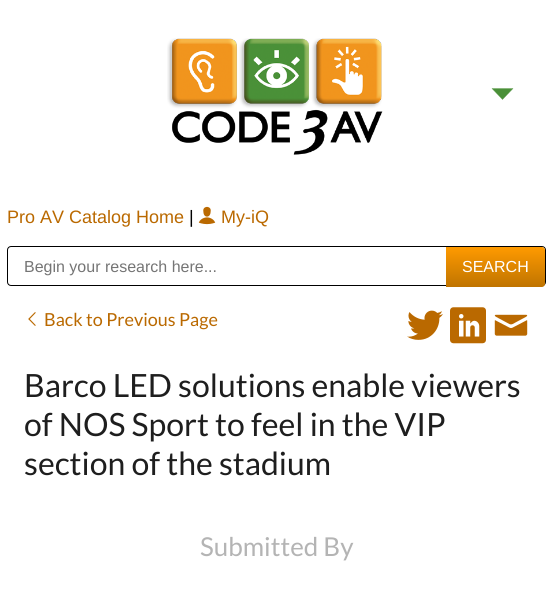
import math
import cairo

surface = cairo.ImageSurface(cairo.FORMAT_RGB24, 552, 606)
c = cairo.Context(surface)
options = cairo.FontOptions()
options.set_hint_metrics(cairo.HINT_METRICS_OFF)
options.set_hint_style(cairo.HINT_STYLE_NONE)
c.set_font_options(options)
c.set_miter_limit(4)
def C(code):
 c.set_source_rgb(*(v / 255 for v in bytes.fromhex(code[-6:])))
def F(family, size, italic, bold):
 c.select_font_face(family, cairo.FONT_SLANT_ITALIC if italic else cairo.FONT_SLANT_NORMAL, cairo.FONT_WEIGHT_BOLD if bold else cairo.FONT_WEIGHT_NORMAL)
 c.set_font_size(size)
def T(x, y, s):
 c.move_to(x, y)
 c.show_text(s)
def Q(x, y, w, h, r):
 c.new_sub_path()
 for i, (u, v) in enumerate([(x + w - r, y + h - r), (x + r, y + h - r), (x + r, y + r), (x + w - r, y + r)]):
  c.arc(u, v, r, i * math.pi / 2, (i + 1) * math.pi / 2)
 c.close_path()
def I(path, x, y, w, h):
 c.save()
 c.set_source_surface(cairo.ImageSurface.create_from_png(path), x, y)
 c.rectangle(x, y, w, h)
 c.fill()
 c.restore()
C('ffffff')
c.paint()
I('1.png',167,38,216,117)
C('4a9038')
c.new_path()
c.move_to(502.5,99.5)
c.line_to(492,88.5)
c.line_to(513,88.5)
c.close_path()
c.fill_preserve()
c.set_line_width(.3)
c.stroke()
F('Liberation Sans',18,0,0)
C('ba6900')
T(7,223,'Pro AV Catalog Home')
C('000000')
T(189,223,'|')
I('2.png',198,206,18,19)
C('ba6900')
T(221,223,'My-iQ')
Q(7.5,246.5,538,39,3.5)
C('000000')
c.set_line_width(1)
c.stroke()
F('Liberation Sans',16,0,0)
C('757575')
T(24,272,'Begin your research here...')
gradient = cairo.LinearGradient(496,247,496,287)
gradient.add_color_stop_rgba(0,1,0.604,0,1)
gradient.add_color_stop_rgba(1,0.749,0.455,0,1)
c.set_source(gradient)
c.new_path()
c.move_to(446,247)
c.line_to(542,247)
c.curve_to(543.5,247,545,248.5,545,250)
c.line_to(545,284)
c.curve_to(545,285.5,543.5,287,542,287)
c.line_to(446,287)
c.close_path()
c.fill()
C('ffffff')
T(462,272,'SEARCH')
I('3.png',28,312,8,14)
F('Lato',18,0,0)
C('ba6900')
T(44,326,'Back to Previous Page')
I('4.png',407,310,36,30)
I('5.png',450,307,36,37)
I('6.png',494,314,34,22)
F('Lato',32,0,0)
C('1e1e1e')
T(24,397,'Barco LED solutions enable viewers')
T(24,436,'of NOS Sport to feel in the VIP')
T(24,475,'section of the stadium')
F('Lato',26,0,0)
C('b4b4b4')
T(200,556,'Submitted By')
surface.write_to_png('o.png')
